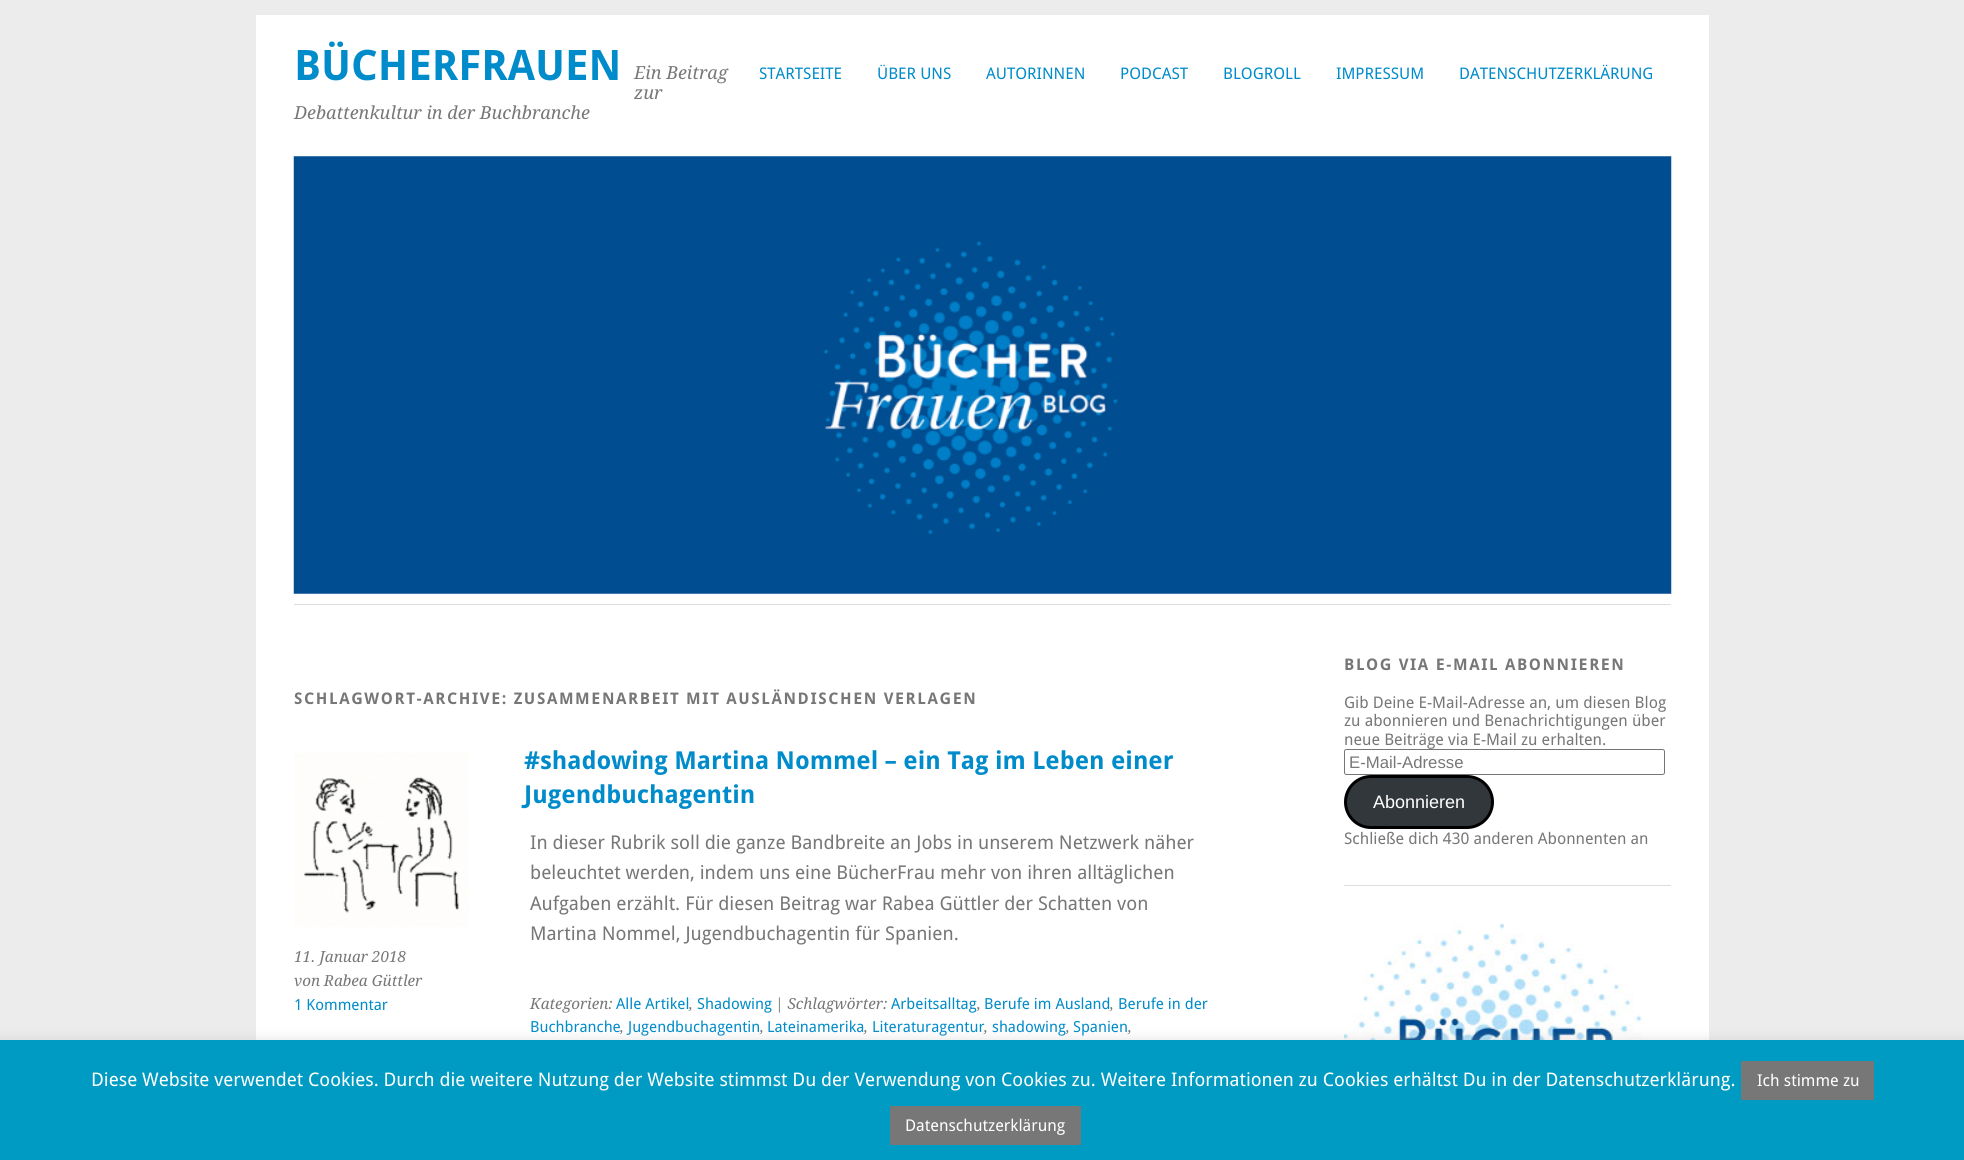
import math
import cairo

surface = cairo.ImageSurface(cairo.FORMAT_RGB24, 1964, 1160)
c = cairo.Context(surface)
options = cairo.FontOptions()
options.set_hint_metrics(cairo.HINT_METRICS_OFF)
options.set_hint_style(cairo.HINT_STYLE_NONE)
c.set_font_options(options)
c.set_miter_limit(4)
def C(code):
 c.set_source_rgb(*(v / 255 for v in bytes.fromhex(code[-6:])))
def F(family, size, italic, bold):
 c.select_font_face(family, cairo.FONT_SLANT_ITALIC if italic else cairo.FONT_SLANT_NORMAL, cairo.FONT_WEIGHT_BOLD if bold else cairo.FONT_WEIGHT_NORMAL)
 c.set_font_size(size)
def T(x, y, s):
 c.move_to(x, y)
 c.show_text(s)
def L(x, y, s, letter, word):
 c.move_to(x, y)
 for ch in s:
  c.show_text(ch)
  c.rel_move_to(letter + word * (ch == ' '), 0)
def R(x, y, w, h):
 c.rectangle(x, y, w, h)
 c.fill()
def Q(x, y, w, h, r):
 c.new_sub_path()
 for i, (u, v) in enumerate([(x + w - r, y + h - r), (x + r, y + h - r), (x + r, y + r), (x + w - r, y + r)]):
  c.arc(u, v, r, i * math.pi / 2, (i + 1) * math.pi / 2)
 c.close_path()
def S(x, y, w, h, r, blur, alpha):
 c.push_group_with_content(cairo.CONTENT_ALPHA)
 c.set_operator(cairo.OPERATOR_SOURCE)
 for i in range(15, -16, -2):
  e = blur * i / 6
  if min(w, h) + 2 * e > 0:
   c.set_source_rgba(0, 0, 0, alpha * math.erfc((i - 1) / 8.5) / 2)
   Q(x - e, y - e, w + 2 * e, h + 2 * e, max(0, min(r + e + blur * .6, min(w, h) / 2 + e)))
   c.fill()
 c.mask(c.pop_group())
def I(path, x, y, w, h):
 c.save()
 c.set_source_surface(cairo.ImageSurface.create_from_png(path), x, y)
 c.rectangle(x, y, w, h)
 c.fill()
 c.restore()
C('ececec')
c.paint()
C('ffffff')
R(256,15,1453,1025)
F('Droid Sans',42,0,1)
C('008bca')
T(294,80,'BÜCHERFRAUEN')
F('Droid Serif',18,1,0)
C('777777')
T(634,79,'Ein Beitrag')
T(634,99,'zur')
T(294,119,'Debattenkultur in der Buchbranche')
F('Droid Sans',16,0,0)
C('008bca')
T(759,79,'STARTSEITE')
T(877,79,'ÜBER UNS')
T(986,79,'AUTORINNEN')
T(1120,79,'PODCAST')
T(1223,79,'BLOGROLL')
T(1336,79,'IMPRESSUM')
T(1459,79,'DATENSCHUTZERKLÄRUNG')
I('1.png',293,156,1379,438)
C('dddddd')
R(294,604,1377,1)
F('Droid Sans',16,0,1)
C('777777')
L(294,704,'SCHLAGWORT-ARCHIVE: ZUSAMMENARBEIT MIT AUSLÄNDISCHEN VERLAGEN',1.6,0)
F('Droid Sans',24.7,0,1)
C('008bca')
T(524,769,'#shadowing Martina Nommel – ein Tag im Leben einer')
T(524,803,'Jugendbuchagentin')
I('2.png',294,752,175,175)
F('Droid Serif',15.25,1,0)
C('777777')
T(294,962,'11. Januar 2018')
T(294,986,'von Rabea Güttler')
F('Droid Sans',15.25,0,0)
C('008bca')
T(294,1010,'1 Kommentar')
F('Droid Sans',19,0,0)
C('777777')
T(530,849,'In dieser Rubrik soll die ganze Bandbreite an Jobs in unserem Netzwerk näher')
T(530,879,'beleuchtet werden, indem uns eine BücherFrau mehr von ihren alltäglichen')
T(530,910,'Aufgaben erzählt. Für diesen Beitrag war Rabea Güttler der Schatten von')
T(530,940,'Martina Nommel, Jugendbuchagentin für Spanien.')
F('Droid Serif',15.25,1,0)
T(530,1009,'Kategorien:')
F('Droid Sans',15.25,0,0)
C('008bca')
T(616,1009,'Alle Artikel')
F('Droid Serif',15.25,1,0)
C('777777')
T(689,1009,',')
F('Droid Sans',15.25,0,0)
C('008bca')
T(697,1009,'Shadowing')
F('Droid Serif',15.25,1,0)
C('777777')
T(775,1009,'| Schlagwörter:')
F('Droid Sans',15.25,0,0)
C('008bca')
T(891,1009,'Arbeitsalltag')
F('Droid Serif',15.25,1,0)
C('777777')
T(977,1009,',')
F('Droid Sans',15.25,0,0)
C('008bca')
T(984,1009,'Berufe im Ausland')
F('Droid Serif',15.25,1,0)
C('777777')
T(1110,1009,',')
F('Droid Sans',15.25,0,0)
C('008bca')
T(1118,1009,'Berufe in der')
T(530,1032,'Buchbranche')
F('Droid Serif',15.25,1,0)
C('777777')
T(620,1032,',')
F('Droid Sans',15.25,0,0)
C('008bca')
T(628,1032,'Jugendbuchagentin')
F('Droid Serif',15.25,1,0)
C('777777')
T(760,1032,',')
F('Droid Sans',15.25,0,0)
C('008bca')
T(767,1032,'Lateinamerika')
F('Droid Serif',15.25,1,0)
C('777777')
T(864,1032,',')
F('Droid Sans',15.25,0,0)
C('008bca')
T(872,1032,'Literaturagentur')
T(992,1032,'shadowing')
T(1073,1032,'Spanien')
F('Droid Serif',15.25,1,0)
C('777777')
T(984,1032,',')
T(1066,1032,',')
T(1128,1032,',')
C('dddddd')
R(1344,885,327,1)
F('Droid Sans',16,0,1)
C('777777')
L(1344,670,'BLOG VIA E-MAIL ABONNIEREN',1.6,0)
F('Droid Sans',16,0,0)
T(1344,708,'Gib Deine E-Mail-Adresse an, um diesen Blog')
T(1344,726,'zu abonnieren und Benachrichtigungen über')
T(1344,745,'neue Beiträge via E-Mail zu erhalten.')
Q(1344.5,749.5,320,25,2)
C('767676')
c.set_line_width(1)
c.stroke()
F('Liberation Sans',16.75,0,0)
C('777777')
T(1349,768,'E-Mail-Adresse')
C('32373c')
Q(1345.5,776.5,147,51,25.5)
c.fill_preserve()
C('000000')
c.set_line_width(3)
c.stroke()
F('Liberation Sans',18,0,0)
C('ffffff')
T(1373,808,'Abonnieren')
F('Droid Sans',16,0,0)
C('777777')
T(1344,844,'Schließe dich 430 anderen Abonnenten an')
I('3.png',1343,923,301,117)
C('acabab')
S(0,1039,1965,120,0,6,.3)
C('009bc2')
R(0,1040,1964,120)
F('Droid Sans',18.75,0,0)
C('ffffff')
T(91,1086,'Diese Website verwendet Cookies. Durch die weitere Nutzung der Website stimmst Du der Verwendung von Cookies zu. Weitere Informationen zu Cookies erhältst Du in der Datenschutzerklärung.')
C('777777')
R(1741,1061,133,39)
F('Droid Sans',16.25,0,0)
C('ffffff')
T(1757,1086,'Ich stimme zu')
C('777777')
R(890,1106,191,39)
C('ffffff')
T(905,1131,'Datenschutzerklärung')
surface.write_to_png('o.png')
